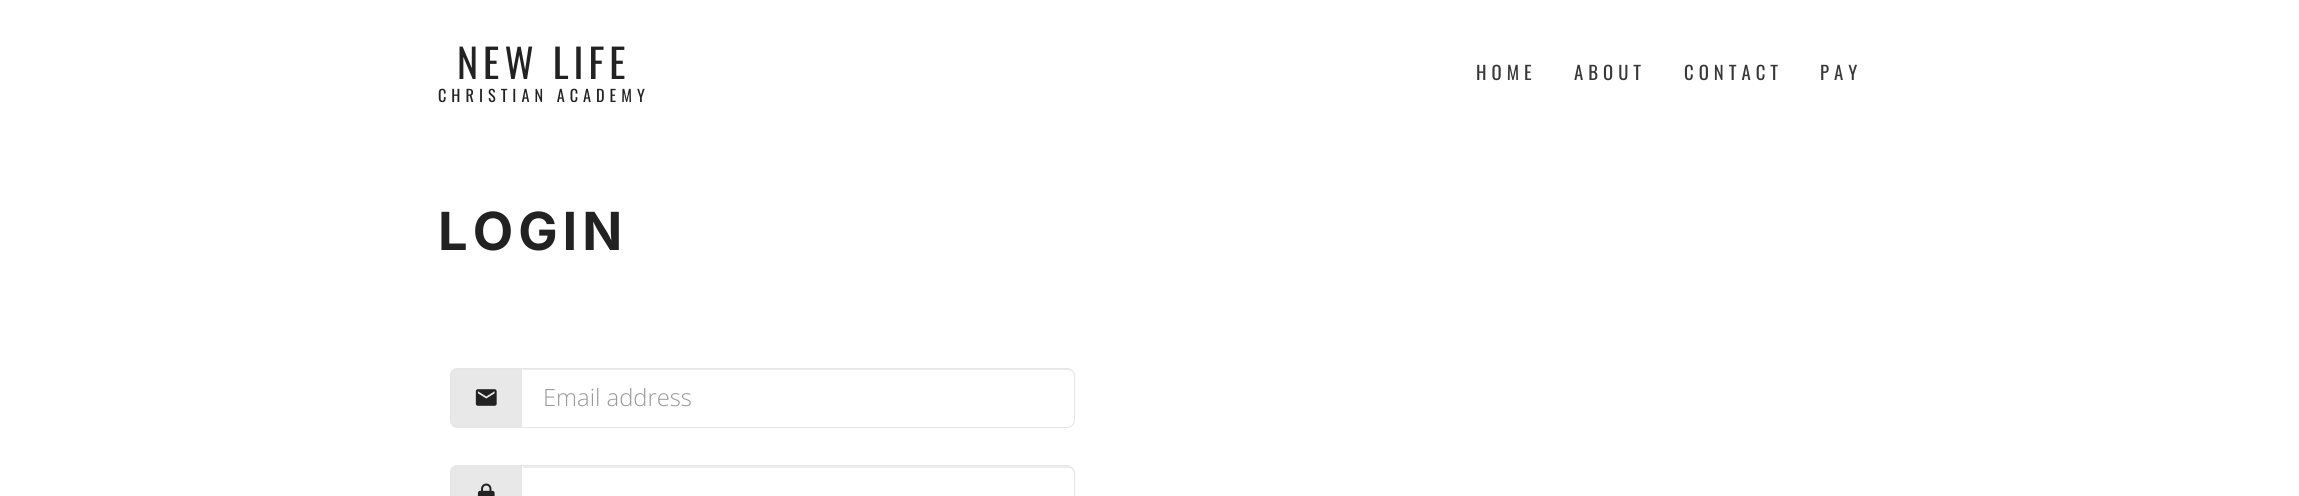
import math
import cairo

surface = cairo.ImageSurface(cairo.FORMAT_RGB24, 2299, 496)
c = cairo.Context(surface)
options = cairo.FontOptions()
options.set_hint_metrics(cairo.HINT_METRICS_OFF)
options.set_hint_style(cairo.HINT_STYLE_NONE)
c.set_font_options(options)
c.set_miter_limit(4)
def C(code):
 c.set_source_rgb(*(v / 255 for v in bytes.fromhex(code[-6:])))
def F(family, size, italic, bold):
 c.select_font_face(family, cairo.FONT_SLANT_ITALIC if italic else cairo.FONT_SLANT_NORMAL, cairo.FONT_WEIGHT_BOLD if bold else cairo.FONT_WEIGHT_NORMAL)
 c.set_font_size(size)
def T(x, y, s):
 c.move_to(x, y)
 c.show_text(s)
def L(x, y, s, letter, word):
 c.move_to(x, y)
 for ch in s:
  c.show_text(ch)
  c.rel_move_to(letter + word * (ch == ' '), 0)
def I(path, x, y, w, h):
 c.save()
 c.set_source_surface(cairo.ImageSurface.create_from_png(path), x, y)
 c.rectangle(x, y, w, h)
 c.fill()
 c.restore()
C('ffffff')
c.paint()
F('Oswald',40,0,0)
C('222222')
L(457,79,'NEW LIFE',5,0)
F('Oswald',16.25,0,0)
L(438,102,'CHRISTIAN ACADEMY',5,0)
F('Oswald',18.75,0,0)
C('383838')
L(1476,80,'HOME',5,0)
L(1574,80,'ABOUT',5,0)
L(1684,80,'CONTACT',5,0)
L(1820,80,'PAY',5,0)
F('Inter',52.5,0,1)
C('222222')
L(438,250,'LOGIN',5,0)
C('e8e8e8')
c.new_path()
c.move_to(458,368)
c.line_to(521,368)
c.line_to(521,428)
c.line_to(458,428)
c.curve_to(453.5,428,450,424.5,450,420)
c.line_to(450,376)
c.curve_to(450,371.5,453.5,368,458,368)
c.close_path()
c.fill()
C('e6e6e6')
c.set_fill_rule(cairo.FILL_RULE_EVEN_ODD)
c.new_path()
c.move_to(458,368)
c.line_to(521,368)
c.line_to(521,428)
c.line_to(458,428)
c.curve_to(453,428,450,424,450,420)
c.line_to(450,375)
c.curve_to(450,371,453,368,458,368)
c.close_path()
c.move_to(458,369)
c.line_to(521,369)
c.line_to(521,426)
c.line_to(458,426)
c.curve_to(454,426,451,423,451,420)
c.line_to(451,375)
c.curve_to(451,372,454,369,458,369)
c.close_path()
c.fill()
I('1.png',475,389,22,17)
C('ececec')
c.set_fill_rule(cairo.FILL_RULE_WINDING)
c.new_path()
c.move_to(523,369)
c.line_to(523,370)
c.line_to(1068,370)
c.curve_to(1071,370,1074,373,1074,376)
c.curve_to(1074,372,1072,369,1068,369)
c.close_path()
c.fill()
c.new_path()
c.move_to(521.5,368.5)
c.line_to(1067,368.5)
c.curve_to(1071,368.5,1074.5,372,1074.5,376)
c.line_to(1074.5,420)
c.curve_to(1074.5,424,1071,427.5,1067,427.5)
c.line_to(521.5,427.5)
c.close_path()
C('e6e6e6')
c.set_line_width(1)
c.stroke()
F('Open Sans Light',23.75,0,0)
C('999999')
T(543,406,'Email address')
C('e8e8e8')
c.new_path()
c.move_to(458,465)
c.line_to(521,465)
c.line_to(521,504)
c.line_to(458,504)
c.curve_to(453.5,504,450,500.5,450,496)
c.line_to(450,473)
c.curve_to(450,468.5,453.5,465,458,465)
c.close_path()
c.fill()
C('e6e6e6')
c.set_fill_rule(cairo.FILL_RULE_EVEN_ODD)
c.new_path()
c.move_to(458,465)
c.line_to(521,465)
c.line_to(521,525)
c.line_to(458,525)
c.curve_to(453,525,450,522,450,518)
c.line_to(450,472)
c.curve_to(450,468,453,465,458,465)
c.close_path()
c.move_to(458,466)
c.line_to(521,466)
c.line_to(521,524)
c.line_to(458,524)
c.curve_to(454,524,451,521,451,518)
c.line_to(451,472)
c.curve_to(451,469,454,466,458,466)
c.close_path()
c.fill()
I('2.png',477,483,18,13)
C('ececec')
c.set_fill_rule(cairo.FILL_RULE_WINDING)
c.new_path()
c.move_to(523,466)
c.line_to(523,468)
c.line_to(1068,468)
c.curve_to(1071,468,1074,470,1074,474)
c.curve_to(1074,470,1073,466,1068,466)
c.close_path()
c.fill()
c.new_path()
c.move_to(521.5,465.5)
c.line_to(1067,465.5)
c.curve_to(1071,465.5,1074.5,469,1074.5,473)
c.line_to(1074.5,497)
c.curve_to(1074.5,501,1071,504.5,1067,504.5)
c.line_to(521.5,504.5)
c.close_path()
C('e6e6e6')
c.stroke()
surface.write_to_png('o.png')
